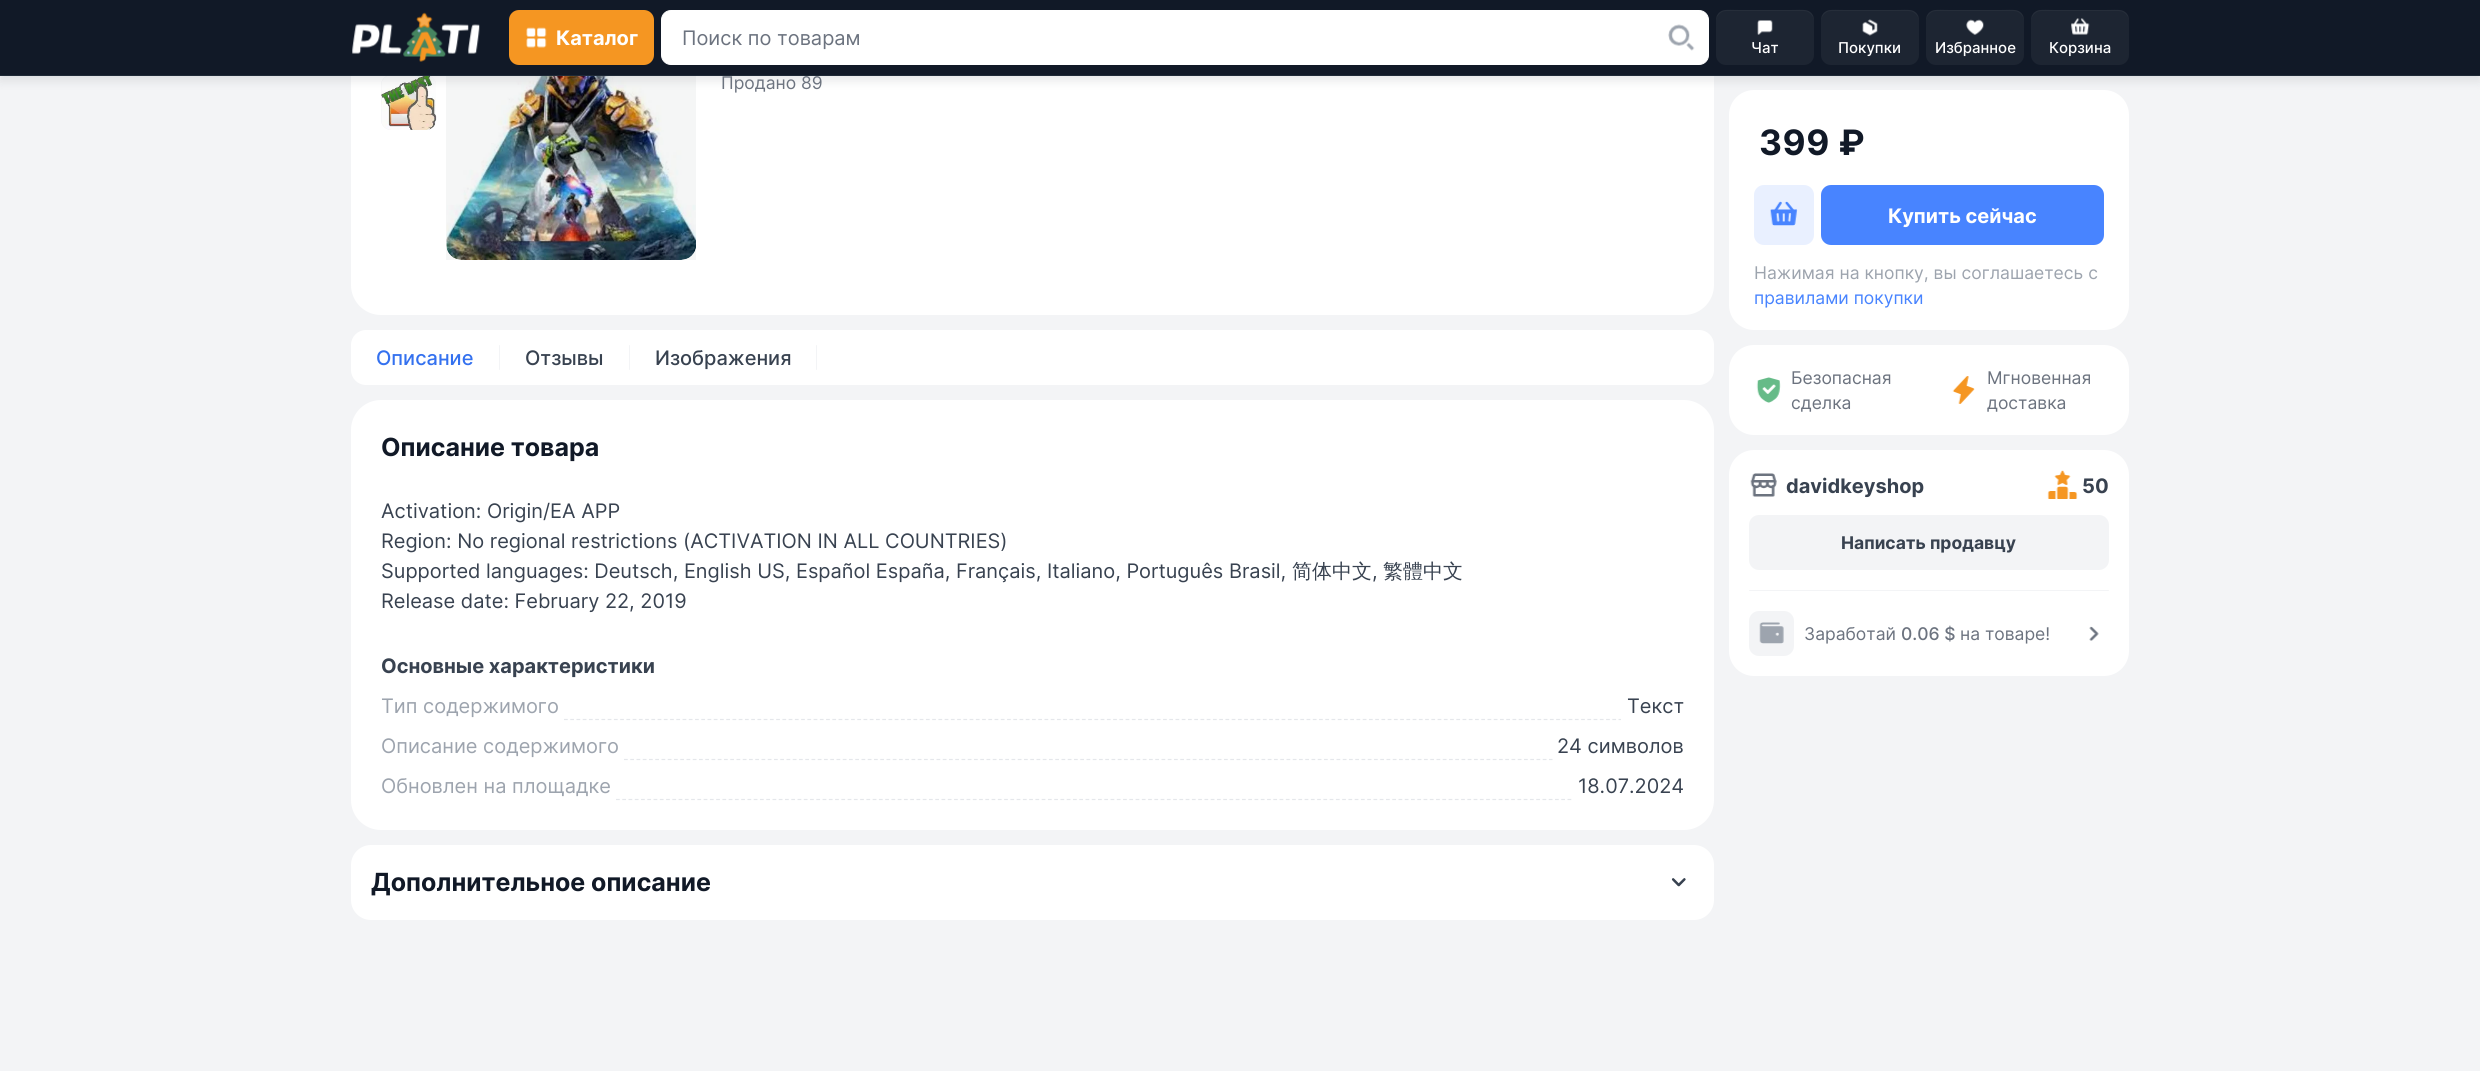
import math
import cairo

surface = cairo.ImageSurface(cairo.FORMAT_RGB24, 2480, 1071)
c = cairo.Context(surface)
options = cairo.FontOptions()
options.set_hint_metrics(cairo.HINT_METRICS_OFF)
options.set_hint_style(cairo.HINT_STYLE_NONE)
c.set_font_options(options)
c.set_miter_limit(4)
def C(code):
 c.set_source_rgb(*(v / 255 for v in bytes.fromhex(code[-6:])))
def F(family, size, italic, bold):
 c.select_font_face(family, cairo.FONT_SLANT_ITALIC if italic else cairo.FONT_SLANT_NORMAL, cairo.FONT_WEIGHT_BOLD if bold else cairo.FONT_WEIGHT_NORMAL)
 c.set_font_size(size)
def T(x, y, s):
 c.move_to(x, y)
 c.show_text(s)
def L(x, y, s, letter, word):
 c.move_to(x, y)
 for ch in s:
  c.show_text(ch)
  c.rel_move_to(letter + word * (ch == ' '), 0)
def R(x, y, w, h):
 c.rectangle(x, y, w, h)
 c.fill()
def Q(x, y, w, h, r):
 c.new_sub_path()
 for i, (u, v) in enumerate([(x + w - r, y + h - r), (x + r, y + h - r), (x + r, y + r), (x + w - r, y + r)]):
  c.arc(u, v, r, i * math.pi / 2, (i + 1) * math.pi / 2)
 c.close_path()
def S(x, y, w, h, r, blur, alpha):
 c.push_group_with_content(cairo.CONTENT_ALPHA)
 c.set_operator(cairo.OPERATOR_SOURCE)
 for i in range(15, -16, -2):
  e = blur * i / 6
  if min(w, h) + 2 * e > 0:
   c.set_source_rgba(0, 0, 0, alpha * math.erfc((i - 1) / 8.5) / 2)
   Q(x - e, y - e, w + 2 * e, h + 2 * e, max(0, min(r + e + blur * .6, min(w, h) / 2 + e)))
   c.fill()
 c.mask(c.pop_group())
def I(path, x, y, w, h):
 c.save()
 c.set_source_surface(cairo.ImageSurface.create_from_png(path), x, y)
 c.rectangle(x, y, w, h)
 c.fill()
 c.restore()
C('f3f4f6')
c.paint()
C('ffffff')
Q(351,-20,1363,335,30)
c.fill()
C('f3f4f6')
Q(381,75,55,55,10)
c.fill()
I('8.png',381,76,56,54)
I('9.png',446,76,250,184)
c.set_source_rgba(0.067,0.098,0.153,0.04)
R(446,76,250,184)
C('ffffff')
Q(1729,90,400,240,25)
c.fill()
C('111927')
S(0,5,2480,76,0,5,.1)
C('111927')
R(0,0,2480,75)
C('1f2a37')
R(0,75,2480,1)
I('1.png',352,12,128,50)
C('f59622')
Q(509,10,145,55,10)
c.fill()
I('2.png',526,27,21,21)
F('Inter',20,0,1)
C('ffffff')
T(556,45,'Каталог')
Q(661.5,10.5,1047,54,9.5)
c.fill_preserve()
c.set_line_width(1)
c.stroke()
F('Inter',20,0,0)
C('6c737f')
T(682,45,'Поиск по товарам')
I('3.png',1668,24,27,27)
C('1d2532')
Q(1716,10,98,55,10)
c.fill()
c.set_source_rgba(1,1,1,0.04)
c.new_path()
c.move_to(1726,11)
c.line_to(1804,11)
c.curve_to(1809,11,1814,16,1814,21)
c.curve_to(1814,7,1801,10,1791,10)
c.line_to(1739,10)
c.curve_to(1729,10,1716,7,1716,21)
c.curve_to(1716,16,1721,11,1726,11)
c.close_path()
c.fill()
I('4.png',1757,20,16,15)
F('Inter Medium',15,0,0)
C('ffffff')
T(1751,53,'Чат')
C('1d2532')
Q(1821,10,98,55,10)
c.fill()
c.set_source_rgba(1,1,1,0.04)
c.new_path()
c.move_to(1831,11)
c.line_to(1909,11)
c.curve_to(1914,11,1919,16,1919,21)
c.curve_to(1919,7,1906,10,1896,10)
c.line_to(1844,10)
c.curve_to(1834,10,1821,7,1821,21)
c.curve_to(1821,16,1826,11,1831,11)
c.close_path()
c.fill()
I('5.png',1862,19,16,17)
C('ffffff')
T(1838,53,'Покупки')
C('1d2532')
Q(1926,10,98,55,10)
c.fill()
c.set_source_rgba(1,1,1,0.04)
c.new_path()
c.move_to(1936,11)
c.line_to(2014,11)
c.curve_to(2019,11,2024,16,2024,21)
c.curve_to(2024,7,2011,10,2001,10)
c.line_to(1949,10)
c.curve_to(1939,10,1926,7,1926,21)
c.curve_to(1926,16,1931,11,1936,11)
c.close_path()
c.fill()
I('6.png',1966,19,18,16)
C('ffffff')
T(1935,53,'Избранное')
C('1d2532')
Q(2031,10,98,55,10)
c.fill()
c.set_source_rgba(1,1,1,0.04)
c.new_path()
c.move_to(2041,11)
c.line_to(2119,11)
c.curve_to(2124,11,2129,16,2129,21)
c.curve_to(2129,7,2116,10,2106,10)
c.line_to(2054,10)
c.curve_to(2044,10,2031,7,2031,21)
c.curve_to(2031,16,2036,11,2041,11)
c.close_path()
c.fill()
I('7.png',2071,18,19,17)
C('ffffff')
T(2049,53,'Корзина')
F('Inter',17.5,0,0)
C('6c737f')
T(721,89,'Продано 89')
C('ffffff')
Q(351,330,1363,55,15)
c.fill()
F('Inter Medium',20,0,0)
C('3471ef')
T(376,365,'Описание')
C('f3f4f6')
Q(499,345,1,25,.5)
c.fill()
C('384250')
T(525,365,'Отзывы')
C('f3f4f6')
Q(629,345,1,25,.5)
c.fill()
C('384250')
T(655,365,'Изображения')
C('f3f4f6')
Q(816,345,1,25,.5)
c.fill()
C('ffffff')
Q(351,400,1363,430,30)
c.fill()
F('Inter',25,0,1)
C('111927')
T(381,456,'Описание товара')
F('Inter',20,0,0)
C('384250')
T(381,518,'Activation: Origin/EA APP')
T(381,548,'Region: No regional restrictions (ACTIVATION IN ALL COUNTRIES)')
T(381,578,'Supported languages: Deutsch, English US, Español España, Français, Italiano, Português Brasil,')
F('WenQuanYi Zen Hei Medium',20,0,0)
T(1292,578,'简体中文')
F('Inter',20,0,0)
T(1372,578,',')
F('WenQuanYi Zen Hei Medium',20,0,0)
T(1383,578,'繁體中文')
F('Inter',20,0,0)
T(381,608,'Release date: February 22, 2019')
F('Inter',20,0,1)
T(381,673,'Основные характеристики')
F('Inter',20,0,0)
C('9da4ae')
T(381,713,'Тип содержимого')
C('384250')
T(1627,713,'Текст')
c.new_path()
c.move_to(564,719.5)
c.line_to(1621,719.5)
C('e5e7eb')
c.set_line_width(1.2)
c.set_dash([3.75,2.49])
c.stroke()
C('9da4ae')
T(381,753,'Описание содержимого')
C('384250')
T(1557,753,'24 символов')
c.new_path()
c.move_to(624,759.5)
c.line_to(1552.5,759.5)
C('e5e7eb')
c.set_dash([3.75,2.5])
c.stroke()
C('9da4ae')
T(381,793,'Обновлен на площадке')
C('384250')
T(1578,793,'18.07.2024')
c.new_path()
c.move_to(616,799.5)
c.line_to(1572.5,799.5)
C('e5e7eb')
c.set_dash([3.75,2.51])
c.stroke()
C('ffffff')
Q(351,845,1363,75,20)
c.fill()
F('Inter',25,0,1)
C('111927')
T(371,891,'Дополнительное описание')
I('10.png',1671,878,15,9)
F('Inter',35,0,1)
L(1759,155,'399 ₽',.5,0)
C('e9f0ff')
Q(1754,185,60,60,10)
c.fill()
I('11.png',1770,201,28,25)
C('4884ff')
Q(1821,185,283,60,10)
c.fill()
F('Inter',20,0,1)
C('ffffff')
T(1888,223,'Купить сейчас')
F('Inter',17.5,0,0)
C('9da4ae')
T(1754,279,'Нажимая на кнопку, вы соглашаетесь с')
C('4884ff')
T(1754,304,'правилами покупки')
C('ffffff')
Q(1729,345,400,90,25)
c.fill()
I('12.png',1756,377,25,26)
C('6c737f')
T(1791,384,'Безопасная')
T(1791,409,'сделка')
I('13.png',1952,376,23,28)
T(1987,384,'Мгновенная')
T(1987,409,'доставка')
C('ffffff')
Q(1729,450,400,226,25)
c.fill()
I('14.png',1750,473,27,24)
F('Inter',20,0,1)
C('384250')
T(1786,493,'davidkeyshop')
I('15.png',2047,470,31,29)
T(2082,493,'50')
C('f3f4f6')
Q(1749,515,360,55,10)
c.fill()
F('Inter',17.5,0,1)
C('384250')
T(1841,549,'Написать продавцу')
C('f3f4f6')
Q(1749,590,360,1,.5)
c.fill()
Q(1749,611,45,45,10)
c.fill()
I('16.png',1759,622,25,22)
F('Inter',17.5,0,0)
C('6c737f')
T(1804,640,'Заработай')
F('Inter Medium',17.5,0,0)
T(1901,640,'0.06 $')
F('Inter',17.5,0,0)
T(1960,640,'на товаре!')
I('17.png',2089,626,10,15)
surface.write_to_png('o.png')
